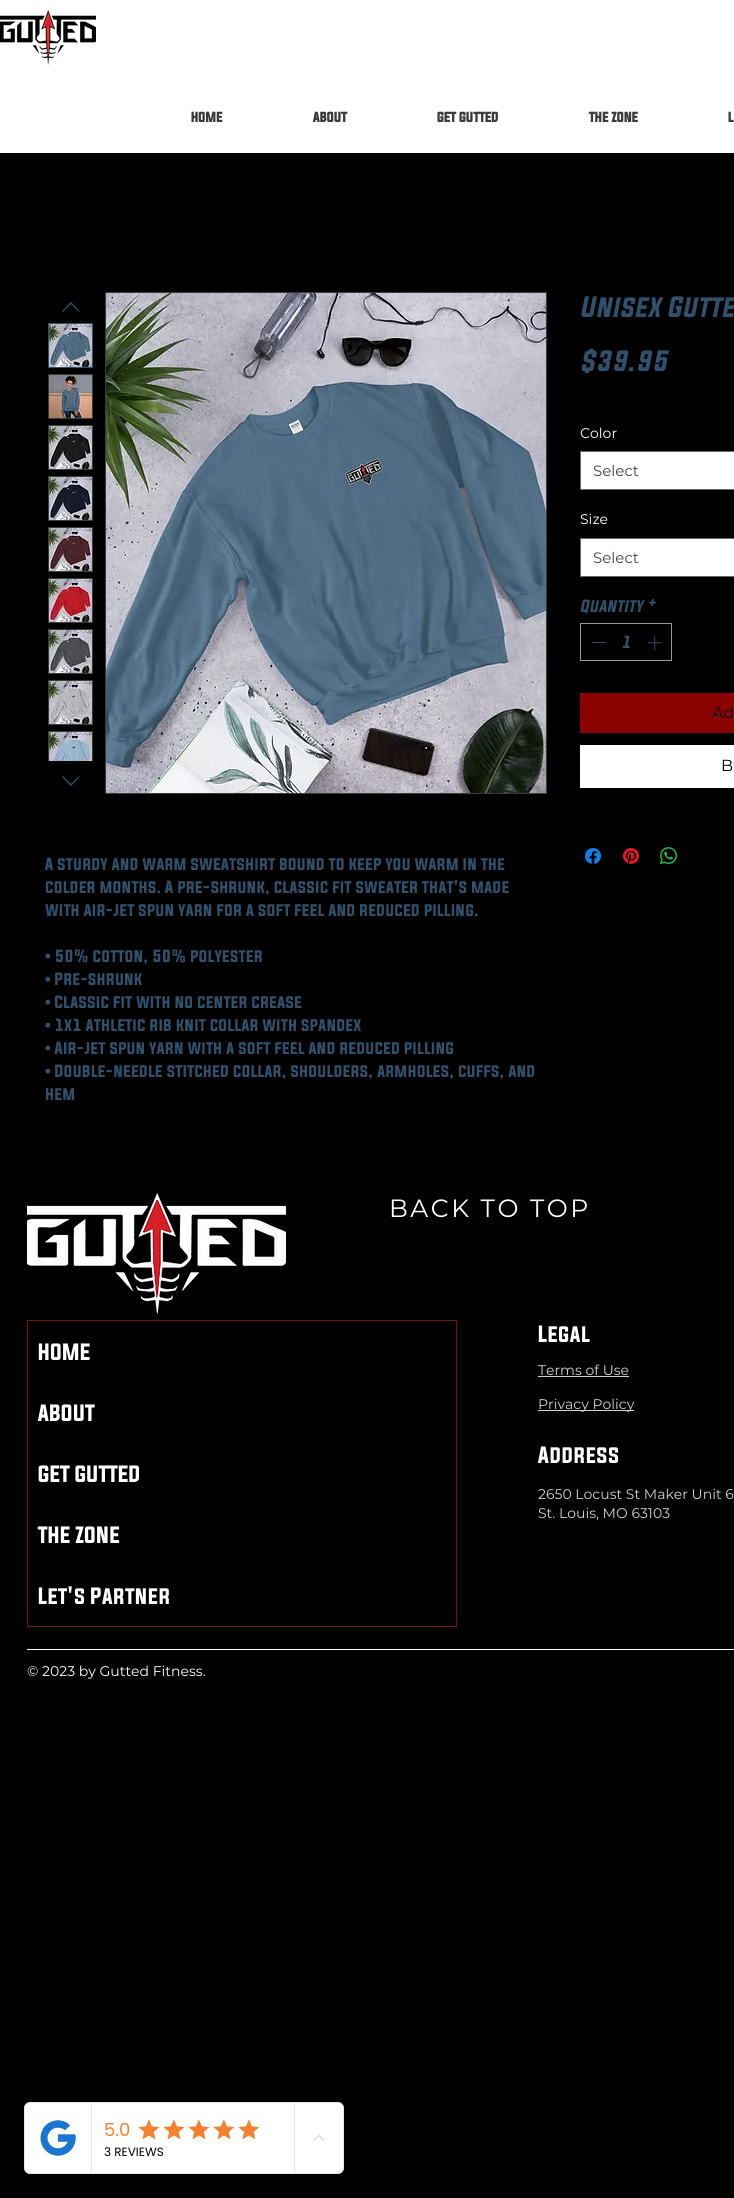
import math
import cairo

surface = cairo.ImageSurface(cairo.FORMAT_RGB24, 734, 2198)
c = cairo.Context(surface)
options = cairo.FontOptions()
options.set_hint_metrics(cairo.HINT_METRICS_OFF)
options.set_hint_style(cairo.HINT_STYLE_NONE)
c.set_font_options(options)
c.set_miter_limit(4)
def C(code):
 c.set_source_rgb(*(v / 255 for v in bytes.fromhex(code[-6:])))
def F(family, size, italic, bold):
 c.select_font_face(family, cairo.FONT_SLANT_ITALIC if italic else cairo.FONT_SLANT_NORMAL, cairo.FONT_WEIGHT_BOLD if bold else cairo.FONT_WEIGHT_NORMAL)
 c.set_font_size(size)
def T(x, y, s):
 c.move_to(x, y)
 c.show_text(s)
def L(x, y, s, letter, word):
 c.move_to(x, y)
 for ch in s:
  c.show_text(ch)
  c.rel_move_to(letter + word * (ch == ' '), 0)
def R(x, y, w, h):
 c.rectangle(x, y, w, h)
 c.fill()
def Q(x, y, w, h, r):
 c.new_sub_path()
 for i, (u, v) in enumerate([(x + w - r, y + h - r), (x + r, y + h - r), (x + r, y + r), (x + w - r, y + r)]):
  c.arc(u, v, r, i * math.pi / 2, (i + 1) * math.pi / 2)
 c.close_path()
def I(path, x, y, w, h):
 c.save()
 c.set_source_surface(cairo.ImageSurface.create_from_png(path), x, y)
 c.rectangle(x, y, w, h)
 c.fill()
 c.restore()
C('000000')
c.paint()
C('ffffff')
R(0,0,734,153)
I('1.png',0,10,96,55)
F('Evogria',12,0,1)
C('3b3b3b')
T(191,122,'HOME')
T(313,122,'ABOUT')
T(437,122,'GET GUTTED')
T(589,122,'THE ZONE')
T(728,122,'L')
F('Evogria',25,1,0)
C('2f516c')
T(580,317,'Unisex Gutte')
T(580,371,'$39.95')
F('Montserrat',14,0,0)
C('ffffff')
T(580,438,'Color')
c.rectangle(580.5,451.5,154,38)
c.fill_preserve()
C('666666')
c.set_line_width(1)
c.stroke()
F('Montserrat',15,0,0)
C('444444')
T(593,476,'Select')
F('Montserrat',14,0,0)
C('ffffff')
T(580,524,'Size')
c.rectangle(580.5,538.5,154,38)
c.fill_preserve()
C('666666')
c.stroke()
F('Montserrat',15,0,0)
C('444444')
T(593,563,'Select')
F('Evogria',15,1,0)
C('2f516c')
T(580,612,'Quantity *')
c.rectangle(580.5,623.5,91,37)
C('999999')
c.stroke()
C('2f516c')
R(592,642,14,1)
T(621,648,'1')
I('2.png',647,635,15,15)
C('8b0000')
R(580,693,154,40)
F('Montserrat',16,0,0)
C('000000')
T(712,718,'Ad')
C('ffffff')
R(580,745,154,43)
C('000000')
T(721,771,'B')
I('3.png',585,848,16,16)
I('4.png',623,848,16,16)
I('5.png',660,847,17,17)
C('2f516c')
c.set_fill_rule(cairo.FILL_RULE_EVEN_ODD)
c.new_path()
c.move_to(71,302)
c.line_to(79.5,311)
c.line_to(79,312)
c.line_to(71,304)
c.line_to(63,312)
c.line_to(62,311)
c.close_path()
c.fill()
c.rectangle(48.5,323.5,44,44)
c.stroke()
I('6.png',49,324,43,43)
c.rectangle(48.5,374.5,44,44)
C('3b3b3b')
c.stroke()
I('7.png',49,375,43,43)
c.rectangle(48.5,425.5,44,44)
c.stroke()
I('8.png',49,426,43,43)
c.rectangle(48.5,476.5,44,44)
c.stroke()
I('9.png',49,477,43,43)
c.rectangle(48.5,527.5,44,44)
c.stroke()
I('10.png',49,528,43,43)
c.rectangle(48.5,578.5,44,44)
c.stroke()
I('11.png',49,579,43,43)
c.rectangle(48.5,629.5,44,44)
c.stroke()
I('12.png',49,630,43,43)
c.rectangle(48.5,680.5,44,44)
c.stroke()
I('13.png',49,681,43,43)
c.save()
c.set_fill_rule(cairo.FILL_RULE_WINDING)
c.rectangle(44,319,53,442)
c.clip()
c.rectangle(48.5,731.5,44,44)
c.stroke()
c.restore()
I('14.png',49,732,43,29)
C('2f516c')
c.new_path()
c.move_to(79,776)
c.line_to(79.5,777)
c.line_to(71,786)
c.line_to(62,777)
c.line_to(63,776)
c.line_to(71,784)
c.close_path()
c.fill()
c.rectangle(105.5,292.5,441,501)
C('3b3b3b')
c.stroke()
I('15.png',106,293,440,500)
F('Evogria',15,0,0)
C('2f516c')
T(45,870,'A sturdy and warm sweatshirt bound to keep you warm in the')
T(45,893,'colder months. A pre-shrunk, classic fit sweater that\'s made')
T(45,916,'with air-jet spun yarn for a soft feel and reduced pilling.')
T(45,962,'• 50% cotton, 50% polyester')
T(45,985,'• Pre-shrunk')
T(45,1008,'• Classic fit with no center crease')
T(45,1031,'• 1x1 athletic rib knit collar with spandex')
T(45,1054,'• Air-jet spun yarn with a soft feel and reduced pilling')
T(45,1077,'• Double-needle stitched collar, shoulders, armholes, cuffs, and')
T(45,1100,'hem')
I('16.png',27,1193,259,121)
F('Montserrat',25,0,0)
C('ffffff')
L(389,1217,'BACK TO TOP',2.5,0)
F('Evogria',20,0,0)
T(538,1342,'Legal')
c.rectangle(27.5,1320.5,429,306)
C('75120a')
c.stroke()
C('ffffff')
T(38,1360,'HOME')
T(38,1421,'ABOUT')
T(38,1482,'GET GUTTED')
T(38,1543,'THE ZONE')
T(38,1604,'Let\'s Partner')
F('Montserrat',14,0,0)
C('d1d1d1')
T(538,1375,'Terms of Use')
R(538,1376,91,1)
R(538,1410,96,1)
T(538,1409,'Privacy Policy')
F('Evogria',20,0,0)
C('ffffff')
T(538,1463,'Address')
F('Montserrat',14,0,0)
C('d1d1d1')
T(538,1499,'2650 Locust St Maker Unit 6')
T(538,1518,'St. Louis, MO 63103')
C('ffffff')
R(27,1649,707,1)
T(27,1676,'© 2023 by Gutted Fitness.')
Q(24.5,2102.5,319,71,5.5)
c.fill_preserve()
C('e5e5e5')
c.stroke()
C('ffffff')
c.new_path()
c.move_to(31,2103)
c.line_to(92,2103)
c.line_to(92,2173)
c.line_to(31,2173)
c.curve_to(27.5,2173,25,2170.5,25,2167)
c.line_to(25,2109)
c.curve_to(25,2105.5,27.5,2103,31,2103)
c.close_path()
c.fill()
C('e5e5e5')
R(91,2103,1,70)
I('17.png',40,2120,36,36)
R(294,2103,1,70)
F('Poppins',18,0,0)
C('f7802f')
T(104,2136,'5.0')
I('19.png',138,2120,21,19)
I('18.png',138,2119,22,21)
I('19.png',163,2120,21,19)
I('18.png',163,2119,22,21)
I('19.png',188,2120,21,19)
I('18.png',188,2119,22,21)
I('19.png',213,2120,21,19)
I('18.png',213,2119,22,21)
I('19.png',238,2120,21,19)
I('18.png',238,2119,22,21)
F('Poppins',12,0,0)
C('000000')
T(104,2156,'3 REVIEWS')
I('20.png',313,2134,12,8)
surface.write_to_png('o.png')
